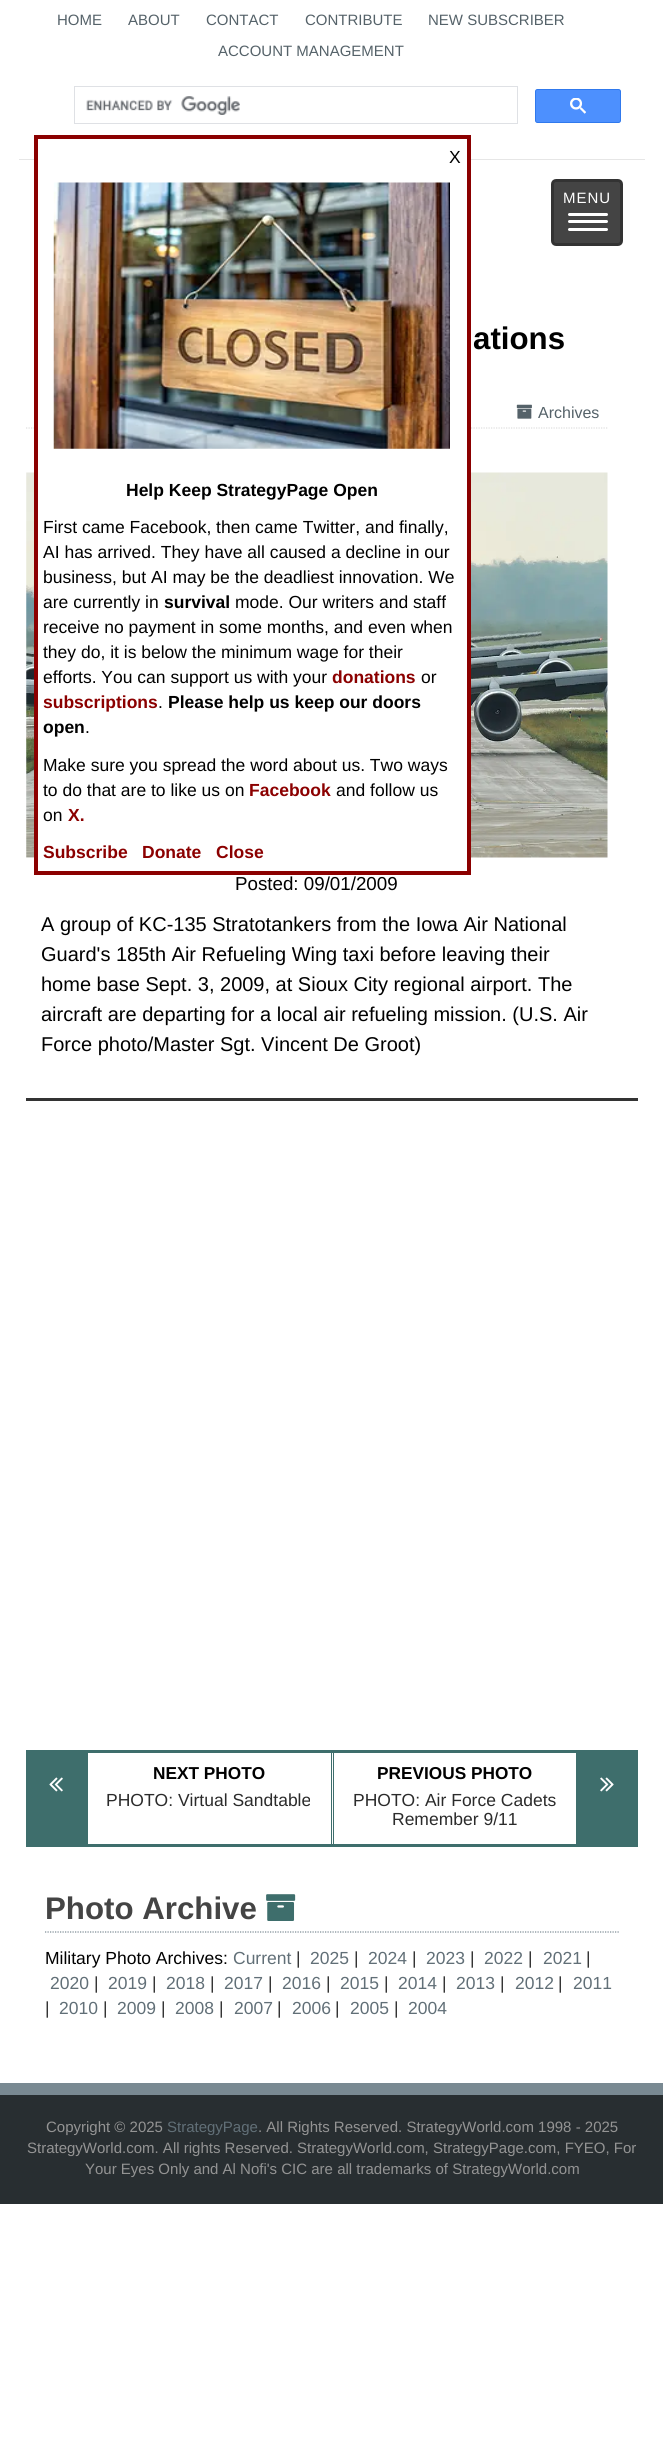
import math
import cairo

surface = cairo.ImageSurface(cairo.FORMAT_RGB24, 663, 2440)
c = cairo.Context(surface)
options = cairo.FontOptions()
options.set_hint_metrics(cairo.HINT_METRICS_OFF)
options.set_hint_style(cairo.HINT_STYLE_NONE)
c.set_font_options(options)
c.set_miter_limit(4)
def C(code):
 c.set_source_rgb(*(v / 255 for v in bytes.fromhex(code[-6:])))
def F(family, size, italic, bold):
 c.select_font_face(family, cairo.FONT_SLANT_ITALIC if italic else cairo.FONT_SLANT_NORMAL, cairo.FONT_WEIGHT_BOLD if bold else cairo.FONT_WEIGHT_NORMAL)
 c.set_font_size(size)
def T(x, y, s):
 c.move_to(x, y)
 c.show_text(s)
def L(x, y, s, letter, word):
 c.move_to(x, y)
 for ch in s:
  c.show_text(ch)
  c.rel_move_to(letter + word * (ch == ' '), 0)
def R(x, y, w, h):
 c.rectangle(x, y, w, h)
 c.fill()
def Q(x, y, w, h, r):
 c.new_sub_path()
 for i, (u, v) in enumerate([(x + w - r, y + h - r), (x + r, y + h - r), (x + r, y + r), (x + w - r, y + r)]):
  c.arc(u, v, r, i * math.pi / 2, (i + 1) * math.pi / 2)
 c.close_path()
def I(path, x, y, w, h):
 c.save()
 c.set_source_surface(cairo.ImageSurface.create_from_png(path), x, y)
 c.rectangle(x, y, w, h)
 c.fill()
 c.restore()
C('ffffff')
c.paint()
C('e6e6e6')
R(19,159,626,1)
F('Liberation Sans',15,0,0)
C('556269')
T(57,25,'HOME')
T(128,25,'ABOUT')
T(206,25,'CONTACT')
T(305,25,'CONTRIBUTE')
T(428,25,'NEW SUBSCRIBER')
T(218,56,'ACCOUNT MANAGEMENT')
c.rectangle(74.5,86.5,443,37)
C('dfe1e5')
c.set_line_width(1)
c.stroke()
I('1.png',86,96,154,19)
C('4d90fe')
Q(535.5,89.5,85,33,2)
c.fill_preserve()
C('3079ed')
c.stroke()
I('2.png',570,98,16,16)
C('444444')
Q(552.5,180.5,69,64,3.5)
c.fill_preserve()
C('333333')
c.set_line_width(3)
c.stroke()
C('ffffff')
L(563,203,'MENU',1,0)
Q(568,213,40,3,1.5)
c.fill()
Q(568,220,40,3,1.5)
c.fill()
Q(568,228,40,3,1.5)
c.fill()
c.new_path()
c.move_to(26,428)
c.line_to(607.5,428)
C('dedede')
c.set_line_width(1.2)
c.set_dash([1.25,1.25])
c.stroke()
I('5.png',26,472,582,386)
C('ffffff')
R(38,159,429,699)
c.rectangle(36,137,433,736)
C('8b0000')
c.set_line_width(4)
c.set_dash([])
c.stroke()
F('Liberation Sans',17.5,0,0)
C('000000')
T(449,163,'X')
I('3.png',53,182,397,267)
F('Liberation Sans',17.5,0,1)
T(126,496,'Help Keep StrategyPage Open')
F('Liberation Sans',17.5,0,0)
T(43,533,'First came Facebook, then came Twitter, and finally,')
T(43,558,'AI has arrived. They have all caused a decline in our')
T(43,583,'business, but AI may be the deadliest innovation. We')
T(43,608,'are currently in')
F('Liberation Sans',17.5,0,1)
T(164,608,'survival')
F('Liberation Sans',17.5,0,0)
T(235,608,'mode. Our writers and staff')
T(43,633,'receive no payment in some months, and even when')
T(43,658,'they do, it is below the minimum wage for their')
T(43,683,'efforts. You can support us with your')
F('Liberation Sans',17.5,0,1)
C('8b0000')
T(332,683,'donations')
F('Liberation Sans',17.5,0,0)
C('000000')
T(421,683,'or')
F('Liberation Sans',17.5,0,1)
C('8b0000')
T(43,708,'subscriptions')
F('Liberation Sans',17.5,0,0)
C('000000')
T(158,708,'.')
F('Liberation Sans',17.5,0,1)
T(168,708,'Please help us keep our doors')
T(43,733,'open')
F('Liberation Sans',17.5,0,0)
T(85,733,'.')
T(43,771,'Make sure you spread the word about us. Two ways')
T(43,796,'to do that are to like us on')
F('Liberation Sans',17.5,0,1)
C('8b0000')
T(249,796,'Facebook')
F('Liberation Sans',17.5,0,0)
C('000000')
T(336,796,'and follow us')
T(43,821,'on')
F('Liberation Sans',17.5,0,1)
C('8b0000')
T(68,821,'X.')
T(43,858,'Subscribe')
T(142,858,'Donate')
T(216,858,'Close')
C('333333')
R(26,1098,612,3)
F('Liberation Sans',31.25,0,1)
C('000000')
T(473,349,'ations')
I('4.png',516,404,16,15)
F('Liberation Sans',16,0,0)
C('556269')
T(538,418,'Archives')
F('Liberation Sans',18.75,0,0)
C('000000')
T(235,890,'Posted: 09/01/2009')
F('Liberation Sans',20,0,0)
T(41,931,'A group of KC-135 Stratotankers from the Iowa Air National')
T(41,961,'Guard\'s 185th Air Refueling Wing taxi before leaving their')
T(41,991,'home base Sept. 3, 2009, at Sioux City regional airport. The')
T(41,1021,'aircraft are departing for a local air refueling mission. (U.S. Air')
T(41,1051,'Force photo/Master Sgt. Vincent De Groot)')
C('3e6e6c')
R(26,1750,612,3)
R(331,1753,1,93)
R(26,1844,612,3)
R(26,1753,62,91)
I('6.png',49,1777,14,15)
F('Liberation Sans',17.25,0,1)
C('000000')
T(153,1779,'NEXT PHOTO')
F('Liberation Sans',17.5,0,0)
C('2b2b2b')
T(106,1806,'PHOTO: Virtual Sandtable')
C('3e6e6c')
R(333,1753,1,93)
F('Liberation Sans',17.25,0,1)
C('000000')
T(377,1779,'PREVIOUS PHOTO')
F('Liberation Sans',17.5,0,0)
C('2b2b2b')
T(353,1806,'PHOTO: Air Force Cadets')
T(392,1825,'Remember 9/11')
C('3e6e6c')
R(576,1753,62,91)
I('7.png',600,1777,14,15)
c.new_path()
c.move_to(45,1932)
c.line_to(619,1932)
C('798992')
c.set_line_width(1.2)
c.set_dash([1.25,1.25])
c.stroke()
F('Liberation Sans',31.25,0,1)
C('444444')
T(45,1919,'Photo Archive')
I('8.png',266,1894,30,27)
F('Liberation Sans',17.5,0,0)
C('000000')
T(45,1964,'Military Photo Archives:')
C('616f77')
T(233,1964,'Current')
C('333333')
T(296,1964,'|')
C('616f77')
T(310,1964,'2025')
C('333333')
T(354,1964,'|')
C('616f77')
T(368,1964,'2024')
C('333333')
T(412,1964,'|')
C('616f77')
T(426,1964,'2023')
C('333333')
T(470,1964,'|')
C('616f77')
T(484,1964,'2022')
C('333333')
T(528,1964,'|')
C('616f77')
T(543,1964,'2021')
C('333333')
T(586,1964,'|')
C('616f77')
T(50,1989,'2020')
C('333333')
T(94,1989,'|')
C('616f77')
T(108,1989,'2019')
C('333333')
T(152,1989,'|')
C('616f77')
T(166,1989,'2018')
C('333333')
T(210,1989,'|')
C('616f77')
T(224,1989,'2017')
C('333333')
T(268,1989,'|')
C('616f77')
T(282,1989,'2016')
C('333333')
T(326,1989,'|')
C('616f77')
T(340,1989,'2015')
C('333333')
T(384,1989,'|')
C('616f77')
T(398,1989,'2014')
C('333333')
T(442,1989,'|')
C('616f77')
T(456,1989,'2013')
C('333333')
T(500,1989,'|')
C('616f77')
T(515,1989,'2012')
C('333333')
T(558,1989,'|')
C('616f77')
T(573,1989,'2011')
C('333333')
T(45,2014,'|')
C('616f77')
T(59,2014,'2010')
C('333333')
T(103,2014,'|')
C('616f77')
T(117,2014,'2009')
C('333333')
T(161,2014,'|')
C('616f77')
T(175,2014,'2008')
C('333333')
T(219,2014,'|')
C('616f77')
T(234,2014,'2007')
C('333333')
T(277,2014,'|')
C('616f77')
T(292,2014,'2006')
C('333333')
T(335,2014,'|')
C('616f77')
T(350,2014,'2005')
C('333333')
T(394,2014,'|')
C('616f77')
T(408,2014,'2004')
C('798992')
R(0,2083,663,12)
C('282e31')
R(0,2095,663,109)
F('Liberation Sans',15,0,0)
C('949494')
T(46,2132,'Copyright © 2025')
C('616f77')
T(167,2132,'StrategyPage')
C('949494')
T(258,2132,'. All Rights Reserved. StrategyWorld.com 1998 - 2025')
T(27,2153,'StrategyWorld.com. All rights Reserved. StrategyWorld.com, StrategyPage.com, FYEO, For')
T(85,2174,'Your Eyes Only and Al Nofi\'s CIC are all trademarks of StrategyWorld.com')
surface.write_to_png('o.png')
